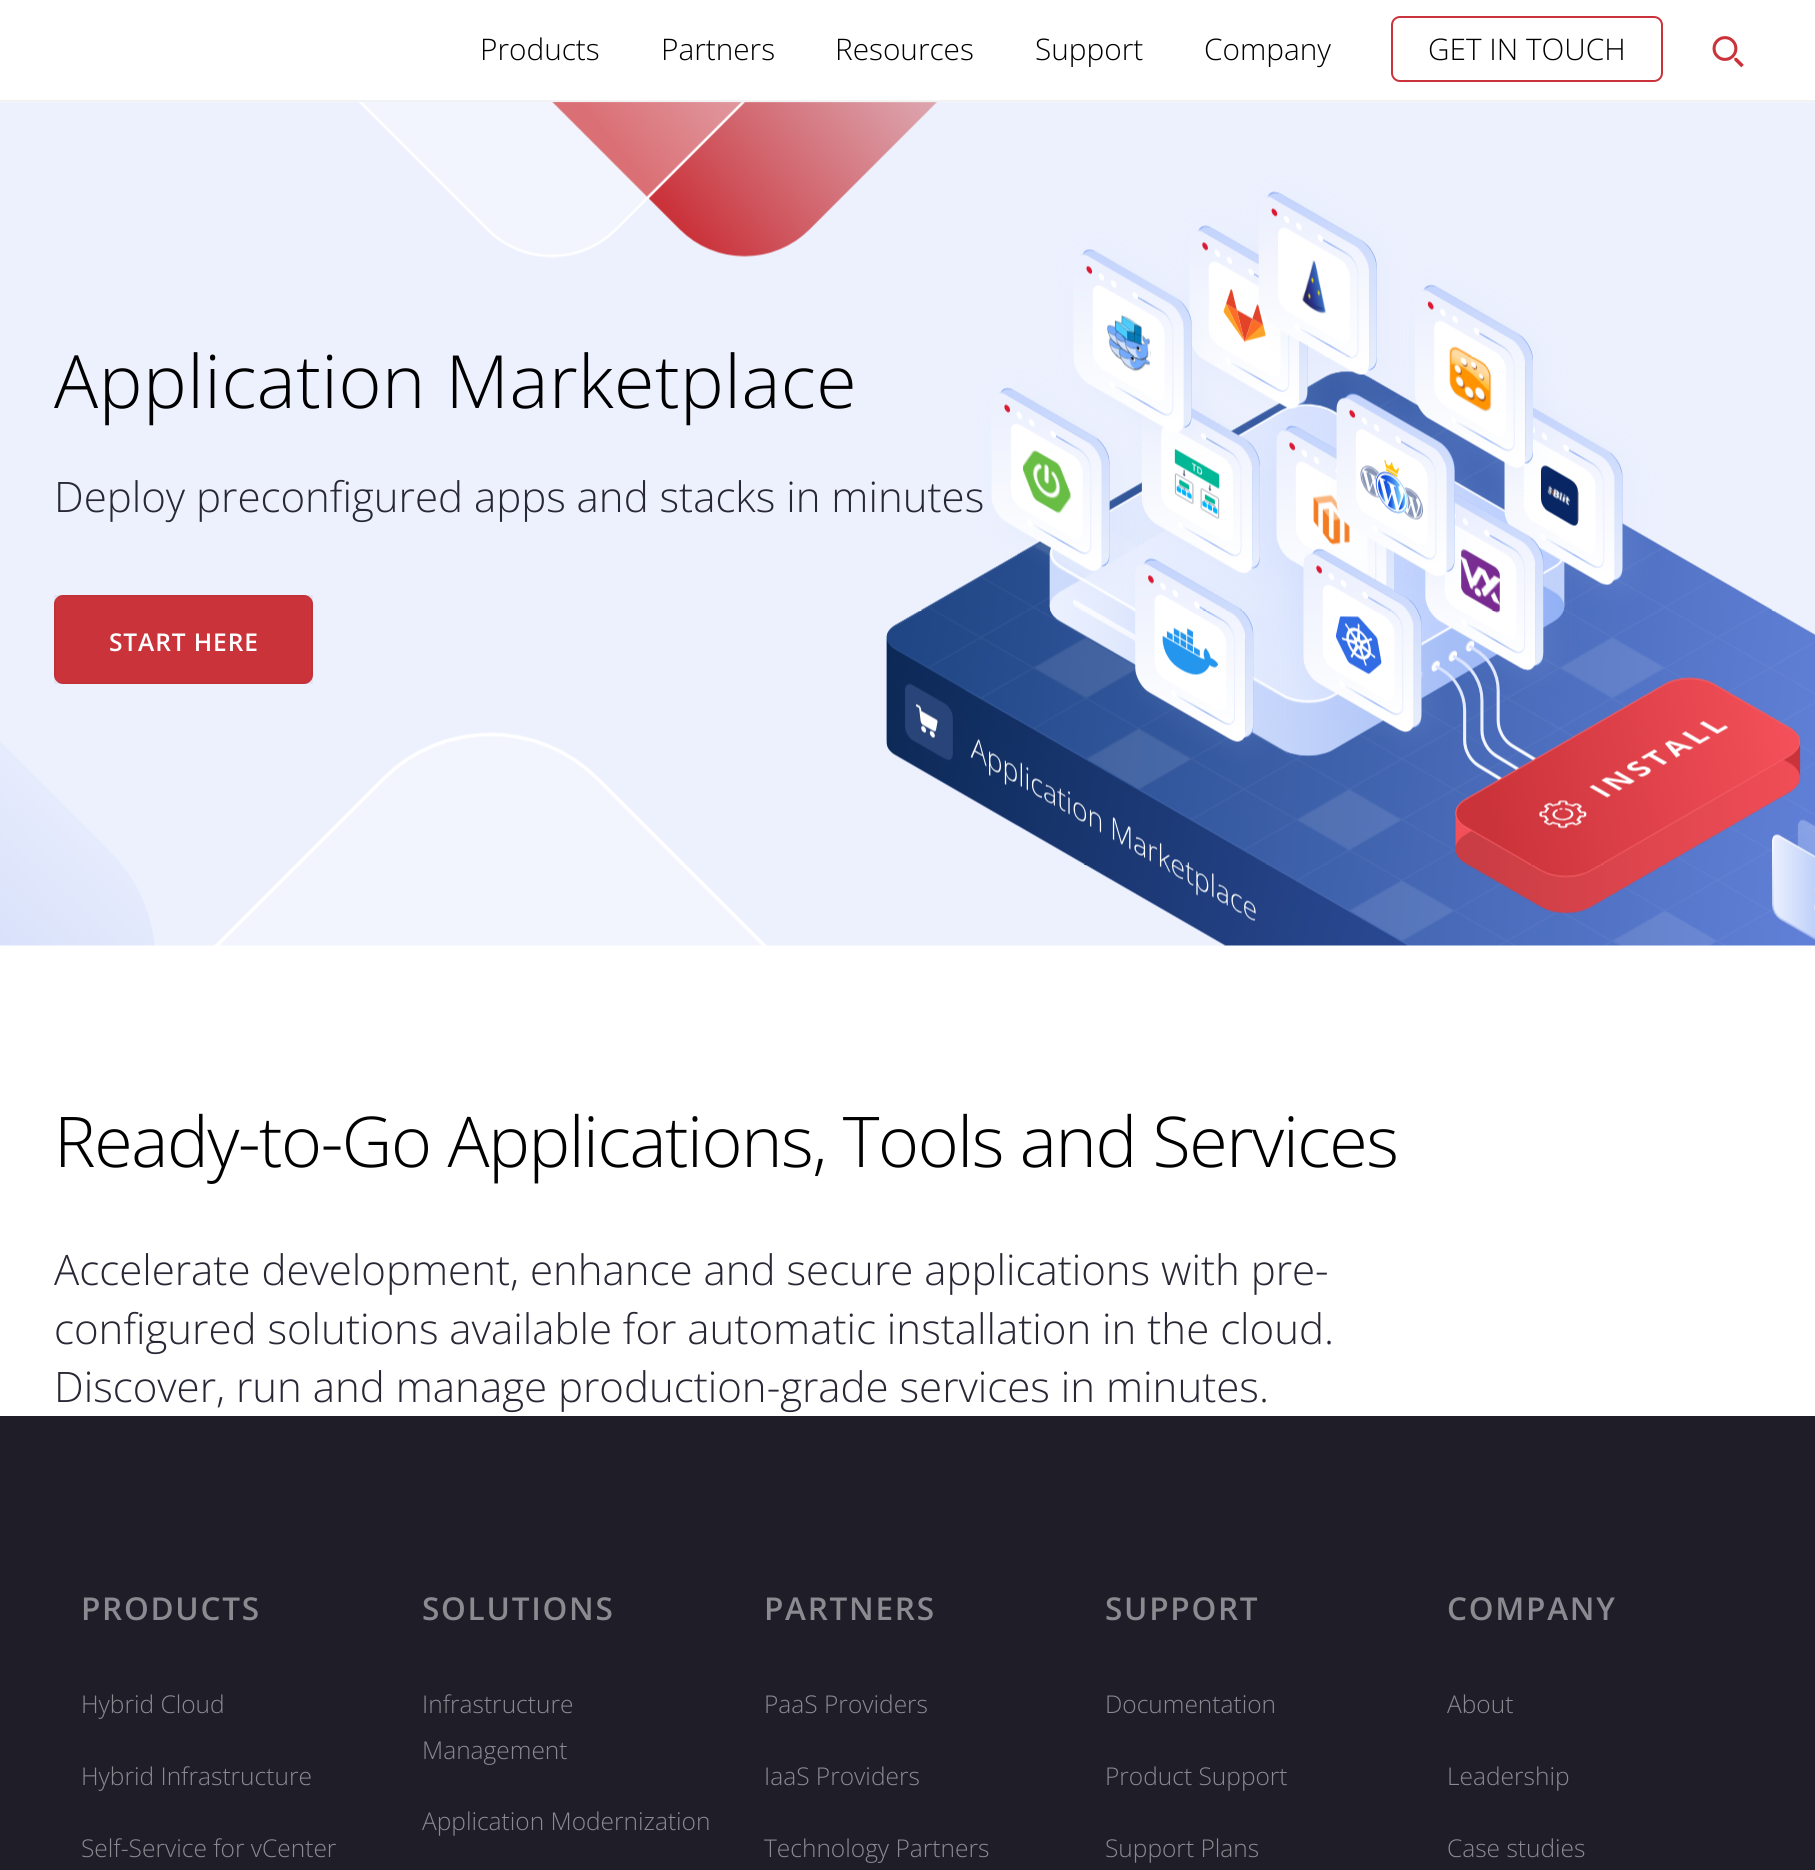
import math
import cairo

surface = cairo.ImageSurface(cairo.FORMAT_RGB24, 1815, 1870)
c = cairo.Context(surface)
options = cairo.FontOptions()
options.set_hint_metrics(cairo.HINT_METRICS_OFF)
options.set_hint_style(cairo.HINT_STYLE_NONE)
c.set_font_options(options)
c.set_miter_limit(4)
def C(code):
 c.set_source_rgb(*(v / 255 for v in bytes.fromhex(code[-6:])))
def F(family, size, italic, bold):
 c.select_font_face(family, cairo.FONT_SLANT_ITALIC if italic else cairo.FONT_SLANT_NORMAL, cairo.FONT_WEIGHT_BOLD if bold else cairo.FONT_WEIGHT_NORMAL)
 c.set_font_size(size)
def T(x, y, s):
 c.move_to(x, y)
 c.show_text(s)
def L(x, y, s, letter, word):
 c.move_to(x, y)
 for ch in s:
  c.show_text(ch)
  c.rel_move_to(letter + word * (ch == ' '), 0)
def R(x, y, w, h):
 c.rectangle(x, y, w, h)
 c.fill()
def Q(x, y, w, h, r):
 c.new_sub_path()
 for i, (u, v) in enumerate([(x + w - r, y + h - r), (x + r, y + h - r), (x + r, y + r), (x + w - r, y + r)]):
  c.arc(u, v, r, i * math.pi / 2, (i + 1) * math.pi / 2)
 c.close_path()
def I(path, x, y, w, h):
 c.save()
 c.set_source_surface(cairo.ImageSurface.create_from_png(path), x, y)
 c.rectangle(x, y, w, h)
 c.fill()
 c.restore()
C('ffffff')
c.paint()
C('f2f2f2')
R(0,100,1815,2)
F('Open Sans Light',29.75,0,0)
C('000000')
T(480,60,'Products')
T(661,60,'Partners')
T(835,60,'Resources')
T(1035,60,'Support')
T(1204,60,'Company')
Q(1392,17,270,64,8)
C('ca333b')
c.stroke()
C('000000')
T(1428,60,'GET IN TOUCH')
I('1.png',1712,36,32,32)
I('2.png',0,102,1815,844)
F('Open Sans Light',73.5,0,0)
L(54,408,'Application Marketplace',.5,0)
F('Open Sans Light',42,0,0)
C('282735')
T(54,512,'Deploy preconfigured apps and stacks in minutes')
C('cb333b')
Q(54,595,259,89,9)
c.fill()
c.rectangle(55,596,257,87)
c.set_source_rgba(0,0,0,0.05)
c.stroke()
F('Open Sans SemiBold',24.5,0,0)
C('ffffff')
L(109,651,'START HERE',.9,0)
F('Open Sans Light',70,0,0)
C('000000')
L(54,1167,'Ready-to-Go Applications, Tools and Services',-1.4,0)
F('Open Sans Light',42,0,0)
C('282735')
T(54,1285,'Accelerate development, enhance and secure applications with pre-')
T(54,1344,'configured solutions available for automatic installation in the cloud.')
T(54,1402,'Discover, run and manage production-grade services in minutes.')
C('1e1d28')
R(0,1416,1815,454)
F('Open Sans SemiBold',31.5,0,0)
C('8a8a90')
L(81,1620,'PRODUCTS',1.75,0)
F('Open Sans Light',24.5,0,0)
T(81,1713,'Hybrid Cloud')
T(81,1785,'Hybrid Infrastructure')
T(81,1857,'Self-Service for vCenter')
F('Open Sans SemiBold',31.5,0,0)
L(422,1620,'SOLUTIONS',1.75,0)
F('Open Sans Light',24.5,0,0)
T(422,1713,'Infrastructure')
T(422,1759,'Management')
T(422,1830,'Application Modernization')
F('Open Sans SemiBold',31.5,0,0)
L(764,1620,'PARTNERS',1.75,0)
F('Open Sans Light',24.5,0,0)
T(764,1713,'PaaS Providers')
T(764,1785,'IaaS Providers')
T(764,1857,'Technology Partners')
F('Open Sans SemiBold',31.5,0,0)
L(1105,1620,'SUPPORT',1.75,0)
F('Open Sans Light',24.5,0,0)
T(1105,1713,'Documentation')
T(1105,1785,'Product Support')
T(1105,1857,'Support Plans')
F('Open Sans SemiBold',31.5,0,0)
L(1447,1620,'COMPANY',1.75,0)
F('Open Sans Light',24.5,0,0)
T(1447,1713,'About')
T(1447,1785,'Leadership')
T(1447,1857,'Case studies')
surface.write_to_png('o.png')
